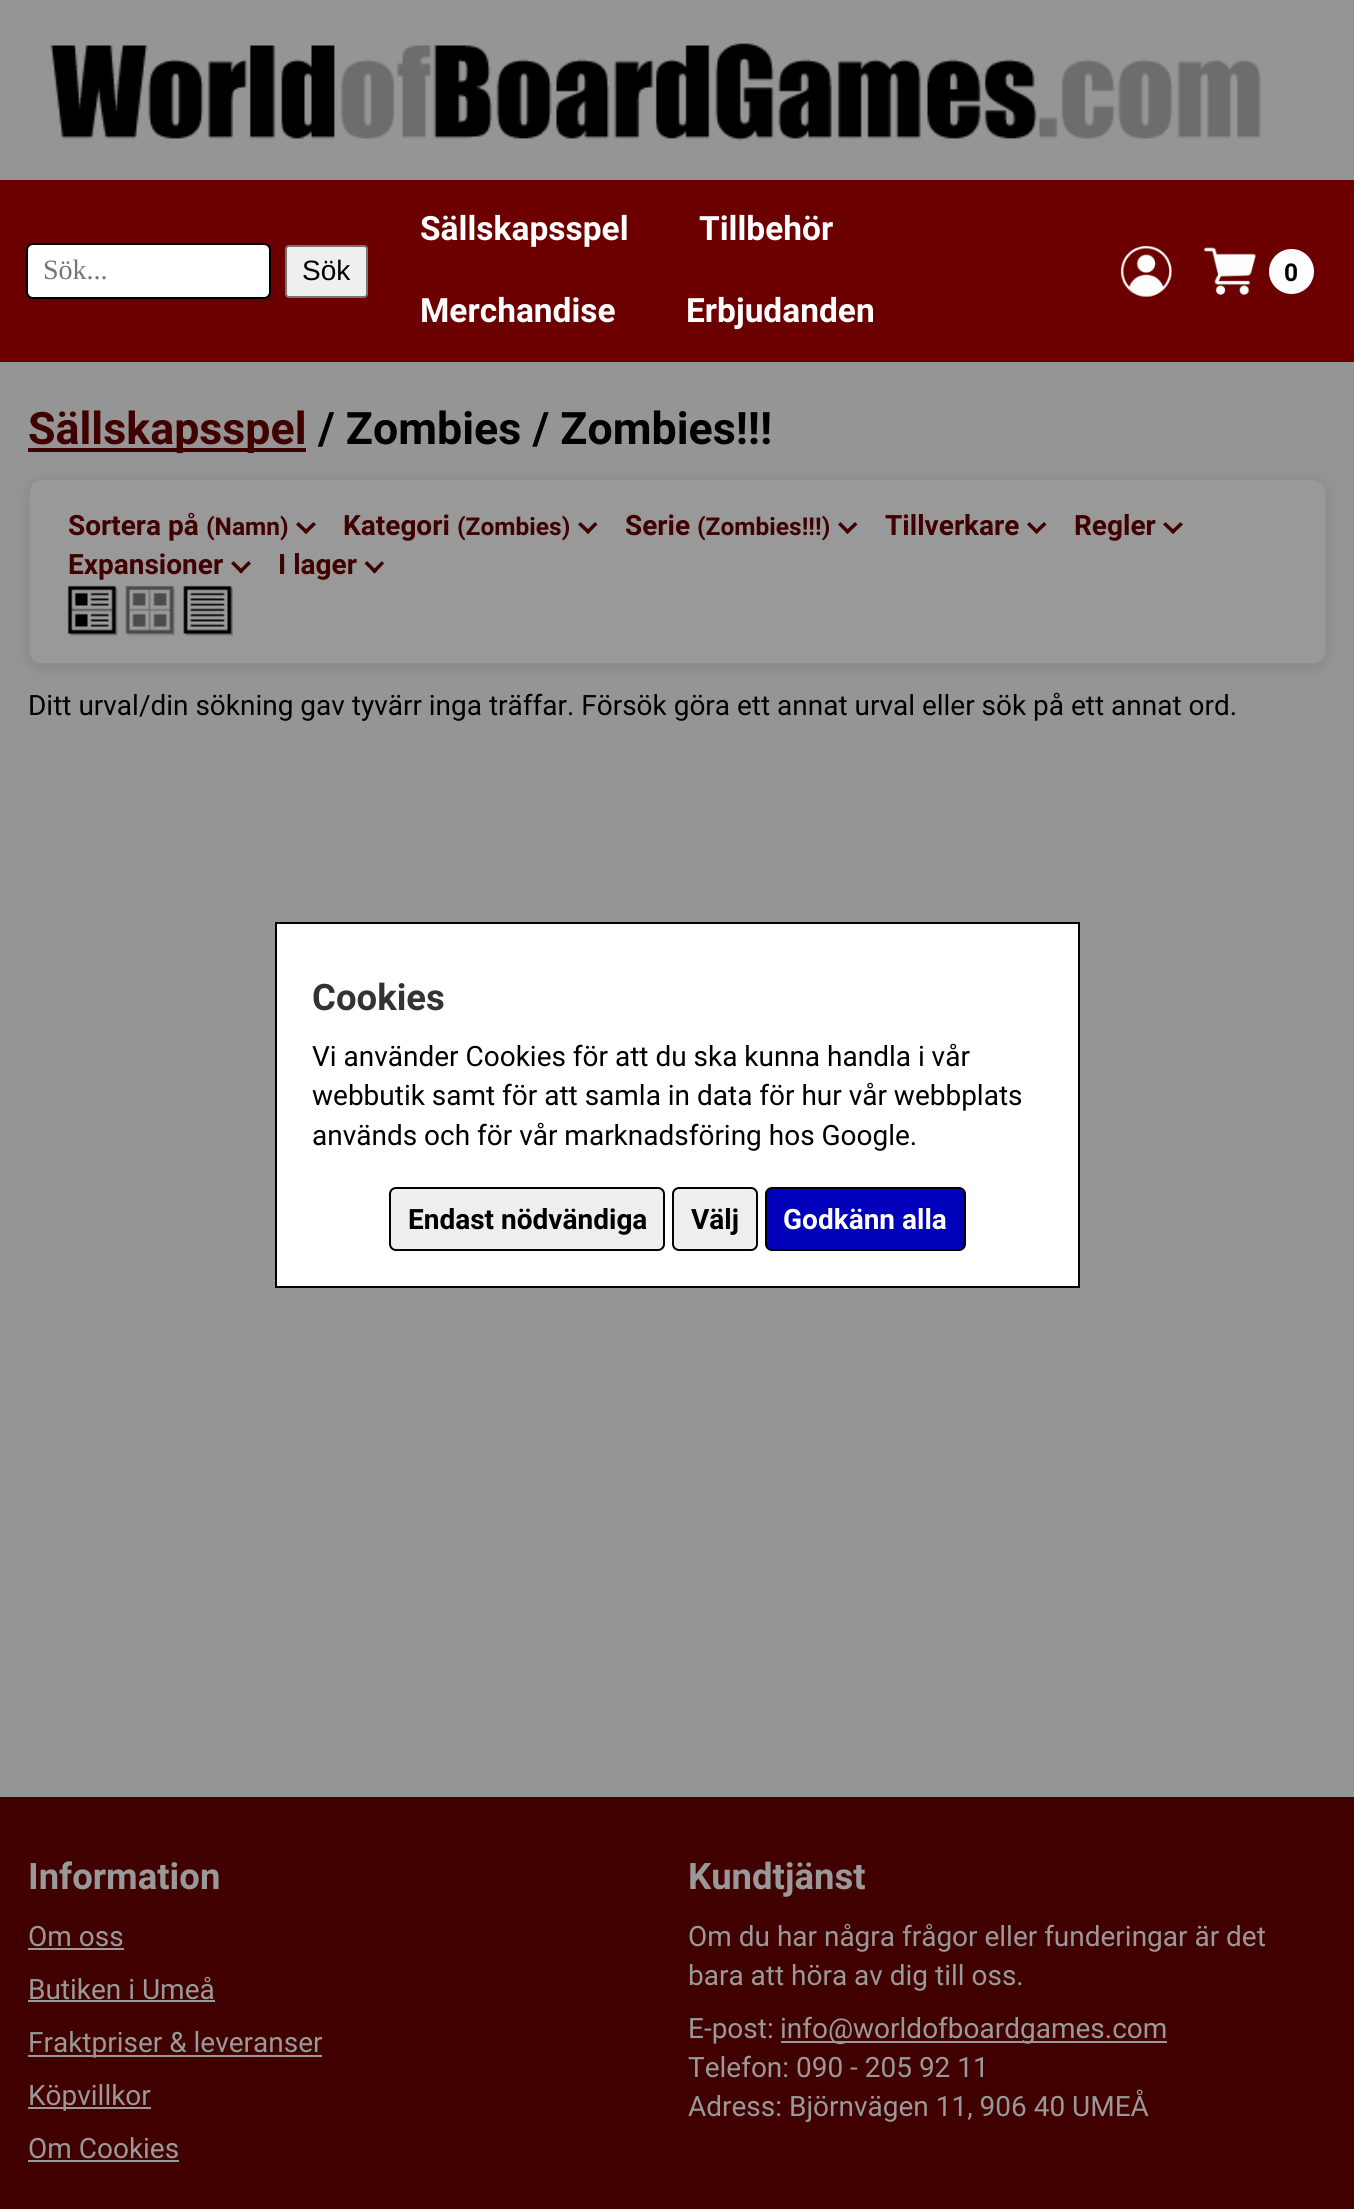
import math
import cairo

surface = cairo.ImageSurface(cairo.FORMAT_RGB24, 1354, 2209)
c = cairo.Context(surface)
options = cairo.FontOptions()
options.set_hint_metrics(cairo.HINT_METRICS_OFF)
options.set_hint_style(cairo.HINT_STYLE_NONE)
c.set_font_options(options)
c.set_miter_limit(4)
def C(code):
 c.set_source_rgb(*(v / 255 for v in bytes.fromhex(code[-6:])))
def F(family, size, italic, bold):
 c.select_font_face(family, cairo.FONT_SLANT_ITALIC if italic else cairo.FONT_SLANT_NORMAL, cairo.FONT_WEIGHT_BOLD if bold else cairo.FONT_WEIGHT_NORMAL)
 c.set_font_size(size)
def T(x, y, s):
 c.move_to(x, y)
 c.show_text(s)
def R(x, y, w, h):
 c.rectangle(x, y, w, h)
 c.fill()
def Q(x, y, w, h, r):
 c.new_sub_path()
 for i, (u, v) in enumerate([(x + w - r, y + h - r), (x + r, y + h - r), (x + r, y + r), (x + w - r, y + r)]):
  c.arc(u, v, r, i * math.pi / 2, (i + 1) * math.pi / 2)
 c.close_path()
def S(x, y, w, h, r, blur, alpha):
 c.push_group_with_content(cairo.CONTENT_ALPHA)
 c.set_operator(cairo.OPERATOR_SOURCE)
 for i in range(15, -16, -2):
  e = blur * i / 6
  if min(w, h) + 2 * e > 0:
   c.set_source_rgba(0, 0, 0, alpha * math.erfc((i - 1) / 8.5) / 2)
   Q(x - e, y - e, w + 2 * e, h + 2 * e, max(0, min(r + e + blur * .6, min(w, h) / 2 + e)))
   c.fill()
 c.mask(c.pop_group())
def I(path, x, y, w, h):
 c.save()
 c.set_source_surface(cairo.ImageSurface.create_from_png(path), x, y)
 c.rectangle(x, y, w, h)
 c.fill()
 c.restore()
C('959595')
c.paint()
I('1.png',50,43,1211,98)
C('6c0000')
R(0,180,1354,182)
C('000000')
S(26,245,245,56,7,2,.1)
C('ffffff')
Q(27,244,243,54,6)
c.fill_preserve()
C('000000')
c.stroke()
F('Liberation Serif',28,0,0)
C('757575')
T(43,279,'Sök...')
C('efefef')
Q(286,246,81,51,3)
c.fill_preserve()
C('767676')
c.stroke()
F('Liberation Sans',28,0,0)
C('000000')
T(302,280,'Sök')
F('Roboto',33.5,0,1)
C('ffffff')
T(420,240,'Sällskapsspel')
T(699,240,'Tillbehör')
T(420,322,'Merchandise')
T(686,322,'Erbjudanden')
I('2.png',1120,245,52,52)
I('3.png',1204,247,52,48)
c.arc(1291.5,271.5,22.5,0,2 * math.pi)
c.fill()
F('Roboto',24.5,0,1)
C('000000')
T(1284,281,'0')
C('410000')
R(28,448,278,4)
F('Roboto',44.75,0,1)
T(28,444,'Sällskapsspel')
C('000000')
T(318,444,'/ Zombies / Zombies!!!')
C('000000')
S(28,481,1299,188,14,7,.1)
C('999999')
Q(29,479,1297,185,13)
c.fill_preserve()
C('8f8f8f')
c.stroke()
F('Roboto',28,0,1)
C('410000')
T(68,535,'Sortera på')
F('Roboto',24.5,0,1)
T(206,535,'(Namn)')
c.new_path()
c.move_to(313.5,522)
c.line_to(316,524.5)
c.line_to(306,534)
c.line_to(303.5,531.5)
c.close_path()
c.fill()
c.new_path()
c.move_to(298.5,522)
c.line_to(308.5,531.5)
c.line_to(306,534)
c.line_to(296,524.5)
c.close_path()
c.fill()
F('Roboto',28,0,1)
T(343,535,'Kategori')
F('Roboto',24.5,0,1)
T(457,535,'(Zombies)')
c.new_path()
c.move_to(595,522)
c.line_to(597.5,524.5)
c.line_to(588,534)
c.line_to(585.5,531.5)
c.close_path()
c.fill()
c.new_path()
c.move_to(580.5,522)
c.line_to(590.5,531.5)
c.line_to(588,534)
c.line_to(578,524.5)
c.close_path()
c.fill()
F('Roboto',28,0,1)
T(625,535,'Serie')
F('Roboto',24.5,0,1)
T(697,535,'(Zombies!!!)')
c.new_path()
c.move_to(855,522)
c.line_to(857.5,524.5)
c.line_to(847.5,534)
c.line_to(845,531.5)
c.close_path()
c.fill()
c.new_path()
c.move_to(840.5,522)
c.line_to(850,531.5)
c.line_to(847.5,534)
c.line_to(838,524.5)
c.close_path()
c.fill()
F('Roboto',28,0,1)
T(885,535,'Tillverkare')
c.new_path()
c.move_to(1044,522)
c.line_to(1046.5,524.5)
c.line_to(1036.5,534)
c.line_to(1034,531.5)
c.close_path()
c.fill()
c.new_path()
c.move_to(1029.5,522)
c.line_to(1039,531.5)
c.line_to(1036.5,534)
c.line_to(1027,524.5)
c.close_path()
c.fill()
T(1074,535,'Regler')
c.new_path()
c.move_to(1180.5,522)
c.line_to(1183,524.5)
c.line_to(1173,534)
c.line_to(1170.5,531.5)
c.close_path()
c.fill()
c.new_path()
c.move_to(1165.5,522)
c.line_to(1175.5,531.5)
c.line_to(1173,534)
c.line_to(1163,524.5)
c.close_path()
c.fill()
T(68,574,'Expansioner')
c.new_path()
c.move_to(248.5,561)
c.line_to(251,563.5)
c.line_to(241,573.5)
c.line_to(238.5,571)
c.close_path()
c.fill()
c.new_path()
c.move_to(233.5,561)
c.line_to(243.5,571)
c.line_to(241,573.5)
c.line_to(231,563.5)
c.close_path()
c.fill()
T(278,574,'I lager')
c.new_path()
c.move_to(382,561)
c.line_to(384,563.5)
c.line_to(374.5,573.5)
c.line_to(372,571)
c.close_path()
c.fill()
c.new_path()
c.move_to(367,561)
c.line_to(377,571)
c.line_to(374.5,573.5)
c.line_to(364.5,563.5)
c.close_path()
c.fill()
I('4.png',67,585,51,51)
I('5.png',125,585,50,51)
I('6.png',183,585,50,51)
F('Roboto',28,0,0)
C('000000')
T(28,715,'Ditt urval/din sökning gav tyvärr inga träffar. Försök göra ett annat urval eller sök på ett annat ord.')
C('ffffff')
c.rectangle(276,923,803,364)
c.fill_preserve()
C('000000')
c.stroke()
F('Roboto',36.5,0,1)
C('333333')
T(312,1010,'Cookies')
F('Roboto',28,0,0)
C('000000')
T(312,1066,'Vi använder Cookies för att du ska kunna handla i vår')
T(312,1105,'webbutik samt för att samla in data för hur vår webbplats')
T(312,1145,'används och för vår marknadsföring hos Google.')
C('eeeeee')
Q(390,1188,274,62,6)
c.fill_preserve()
C('000000')
c.stroke()
F('Roboto',28,0,1)
T(408,1229,'Endast nödvändiga')
C('eeeeee')
Q(673,1188,84,62,6)
c.fill_preserve()
C('000000')
c.stroke()
T(691,1229,'Välj')
C('0000bb')
Q(766,1188,199,62,6)
c.fill_preserve()
C('000000')
c.stroke()
C('ffffff')
T(783,1229,'Godkänn alla')
C('410000')
R(0,1797,1354,412)
F('Roboto',36.5,0,1)
C('999999')
T(28,1889,'Information')
F('Roboto',28,0,0)
T(28,1946,'Om oss')
R(28,1948,96,2)
T(28,1999,'Butiken i Umeå')
R(28,2000,187,2)
R(28,2055,294,2)
T(28,2052,'Fraktpriser & leveranser')
R(28,2107,123,2)
T(28,2105,'Köpvillkor')
T(28,2158,'Om Cookies')
R(28,2160,151,2)
F('Roboto',36.5,0,1)
T(688,1889,'Kundtjänst')
F('Roboto',28,0,0)
T(688,1946,'Om du har några frågor eller funderingar är det')
T(688,1985,'bara att höra av dig till oss.')
T(688,2038,'E-post:')
R(781,2041,386,2)
T(780,2038,'info@worldofboardgames.com')
T(688,2077,'Telefon: 090 - 205 92 11')
T(688,2116,'Adress: Björnvägen 11, 906 40 UMEÅ')
surface.write_to_png('o.png')
